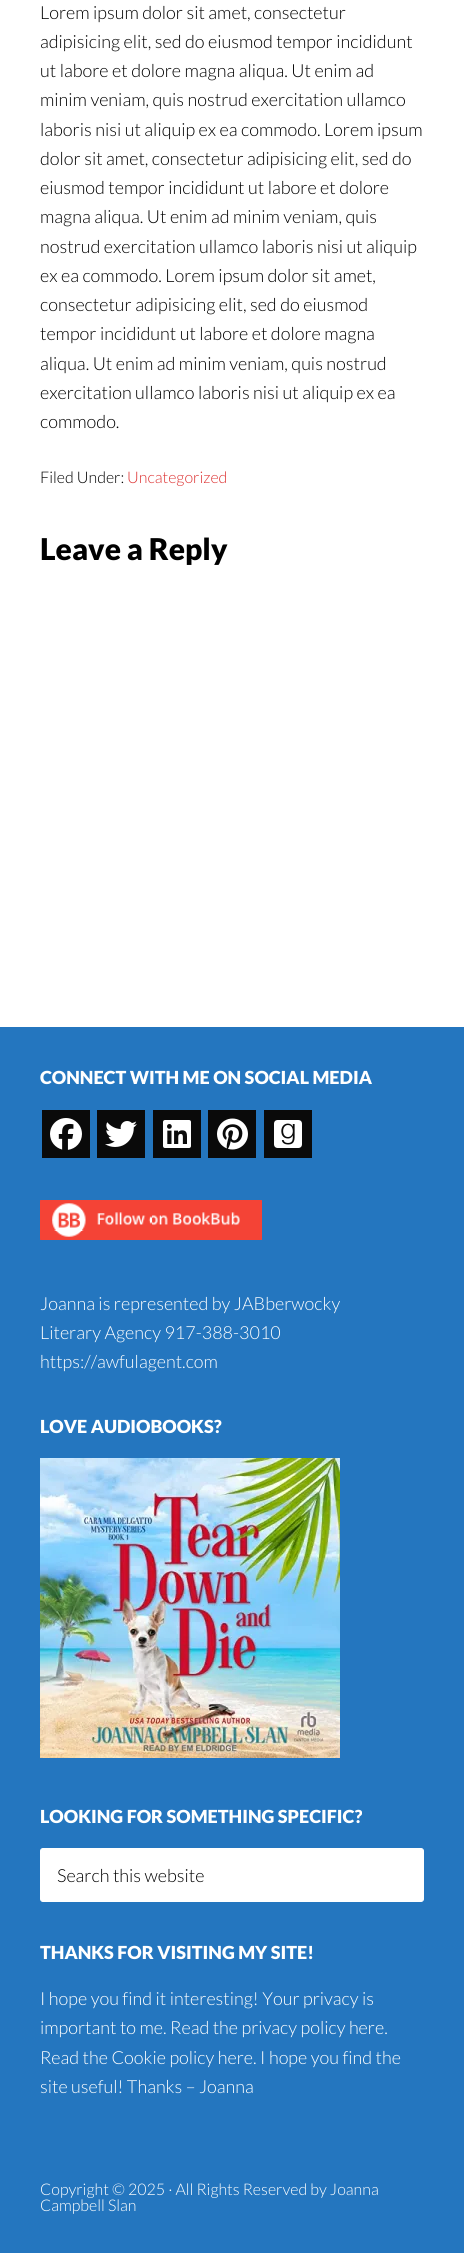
import math
import cairo

surface = cairo.ImageSurface(cairo.FORMAT_RGB24, 464, 2253)
c = cairo.Context(surface)
options = cairo.FontOptions()
options.set_hint_metrics(cairo.HINT_METRICS_OFF)
options.set_hint_style(cairo.HINT_STYLE_NONE)
c.set_font_options(options)
c.set_miter_limit(4)
def C(code):
 c.set_source_rgb(*(v / 255 for v in bytes.fromhex(code[-6:])))
def F(family, size, italic, bold):
 c.select_font_face(family, cairo.FONT_SLANT_ITALIC if italic else cairo.FONT_SLANT_NORMAL, cairo.FONT_WEIGHT_BOLD if bold else cairo.FONT_WEIGHT_NORMAL)
 c.set_font_size(size)
def T(x, y, s):
 c.move_to(x, y)
 c.show_text(s)
def R(x, y, w, h):
 c.rectangle(x, y, w, h)
 c.fill()
def Q(x, y, w, h, r):
 c.new_sub_path()
 for i, (u, v) in enumerate([(x + w - r, y + h - r), (x + r, y + h - r), (x + r, y + r), (x + w - r, y + r)]):
  c.arc(u, v, r, i * math.pi / 2, (i + 1) * math.pi / 2)
 c.close_path()
def I(path, x, y, w, h):
 c.save()
 c.set_source_surface(cairo.ImageSurface.create_from_png(path), x, y)
 c.rectangle(x, y, w, h)
 c.fill()
 c.restore()
C('2476bf')
c.paint()
C('ffffff')
R(0,0,464,1027)
F('Lato Light',18,0,0)
C('000000')
T(40,19,'Lorem ipsum dolor sit amet, consectetur')
T(40,48,'adipisicing elit, sed do eiusmod tempor incididunt')
T(40,77,'ut labore et dolore magna aliqua. Ut enim ad')
T(40,106,'minim veniam, quis nostrud exercitation ullamco')
T(40,136,'laboris nisi ut aliquip ex ea commodo. Lorem ipsum')
T(40,165,'dolor sit amet, consectetur adipisicing elit, sed do')
T(40,194,'eiusmod tempor incididunt ut labore et dolore')
T(40,223,'magna aliqua. Ut enim ad minim veniam, quis')
T(40,253,'nostrud exercitation ullamco laboris nisi ut aliquip')
T(40,282,'ex ea commodo. Lorem ipsum dolor sit amet,')
T(40,311,'consectetur adipisicing elit, sed do eiusmod')
T(40,340,'tempor incididunt ut labore et dolore magna')
T(40,370,'aliqua. Ut enim ad minim veniam, quis nostrud')
T(40,399,'exercitation ullamco laboris nisi ut aliquip ex ea')
T(40,428,'commodo.')
F('Lato Light',16,0,0)
T(40,483,'Filed Under:')
C('dd3333')
T(127,483,'Uncategorized')
F('Lato Black',30,0,0)
C('000000')
T(40,560,'Leave a Reply')
F('Lato Black',18,0,0)
C('ffffff')
T(40,1084,'CONNECT WITH ME ON SOCIAL MEDIA')
C('0a0a0a')
R(42,1110,48,48)
I('1.png',50,1118,32,32)
R(97,1110,48,48)
I('2.png',105,1121,32,26)
R(153,1110,48,48)
I('3.png',163,1120,28,28)
R(208,1110,48,48)
I('4.png',217,1118,31,32)
R(264,1110,48,48)
I('5.png',274,1120,28,28)
I('6.png',40,1200,222,40)
F('Lato Light',18,0,0)
C('ffffff')
T(40,1310,'Joanna is represented by JABberwocky')
T(40,1339,'Literary Agency 917-388-3010')
T(40,1368,'https://awfulagent.com')
F('Lato Black',18,0,0)
T(40,1433,'LOVE AUDIOBOOKS?')
I('7.png',40,1458,300,300)
T(40,1823,'LOOKING FOR SOMETHING SPECIFIC?')
Q(40.5,1848.5,383,53,2.5)
c.fill_preserve()
c.set_line_width(1)
c.stroke()
F('Lato Light',18,0,0)
C('000000')
T(57,1882,'Search this website')
F('Lato Black',18,0,0)
C('ffffff')
T(40,1959,'THANKS FOR VISITING MY SITE!')
F('Lato Light',18,0,0)
T(40,2005,'I hope you find it interesting! Your privacy is')
T(40,2034,'important to me. Read the privacy policy here.')
T(40,2064,'Read the Cookie policy here. I hope you find the')
T(40,2093,'site useful! Thanks – Joanna')
F('Lato Light',16,0,0)
T(40,2195,'Copyright © 2025 · All Rights Reserved by Joanna')
T(40,2211,'Campbell Slan')
surface.write_to_png('o.png')
